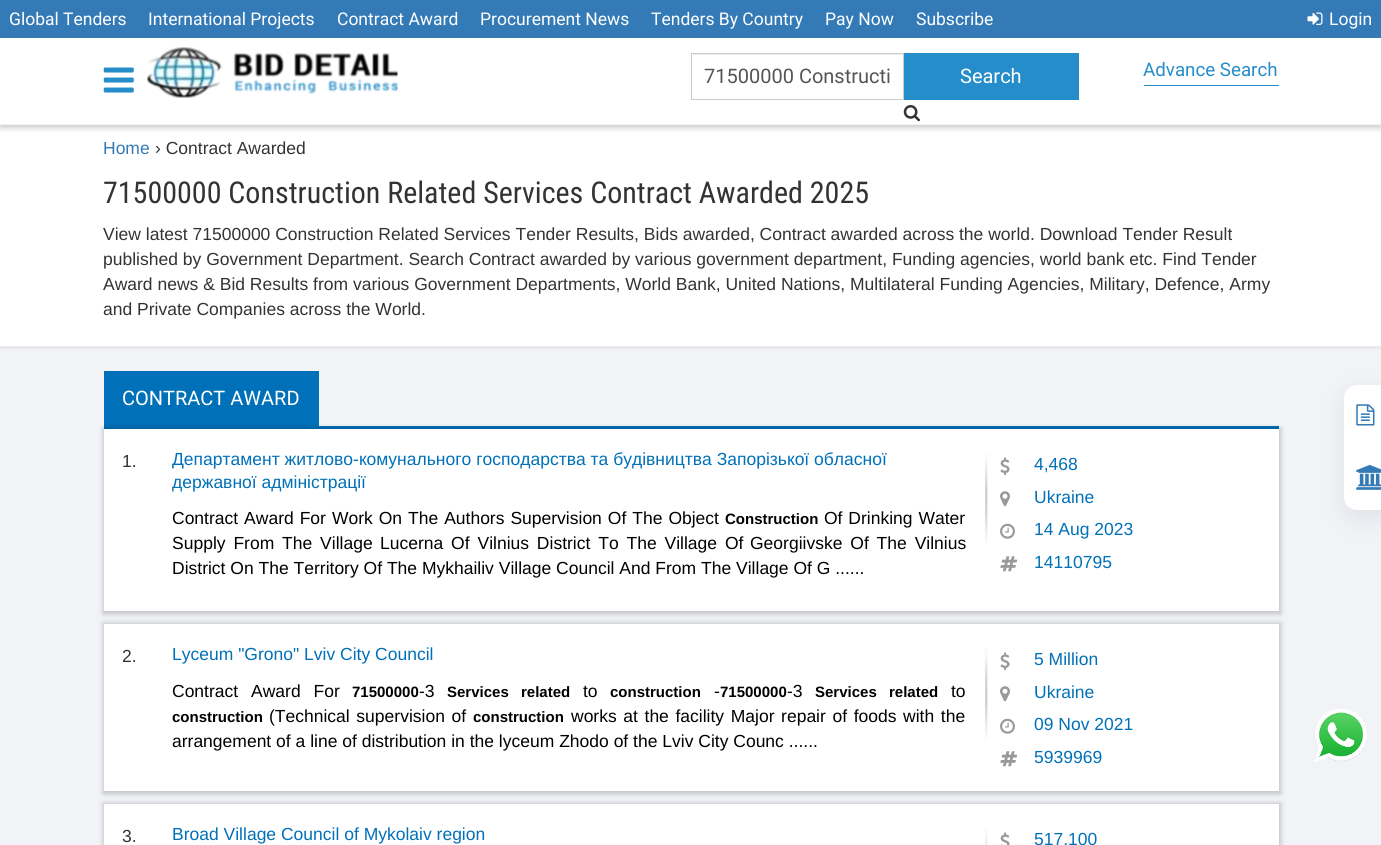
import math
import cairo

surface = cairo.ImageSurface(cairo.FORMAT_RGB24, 1381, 845)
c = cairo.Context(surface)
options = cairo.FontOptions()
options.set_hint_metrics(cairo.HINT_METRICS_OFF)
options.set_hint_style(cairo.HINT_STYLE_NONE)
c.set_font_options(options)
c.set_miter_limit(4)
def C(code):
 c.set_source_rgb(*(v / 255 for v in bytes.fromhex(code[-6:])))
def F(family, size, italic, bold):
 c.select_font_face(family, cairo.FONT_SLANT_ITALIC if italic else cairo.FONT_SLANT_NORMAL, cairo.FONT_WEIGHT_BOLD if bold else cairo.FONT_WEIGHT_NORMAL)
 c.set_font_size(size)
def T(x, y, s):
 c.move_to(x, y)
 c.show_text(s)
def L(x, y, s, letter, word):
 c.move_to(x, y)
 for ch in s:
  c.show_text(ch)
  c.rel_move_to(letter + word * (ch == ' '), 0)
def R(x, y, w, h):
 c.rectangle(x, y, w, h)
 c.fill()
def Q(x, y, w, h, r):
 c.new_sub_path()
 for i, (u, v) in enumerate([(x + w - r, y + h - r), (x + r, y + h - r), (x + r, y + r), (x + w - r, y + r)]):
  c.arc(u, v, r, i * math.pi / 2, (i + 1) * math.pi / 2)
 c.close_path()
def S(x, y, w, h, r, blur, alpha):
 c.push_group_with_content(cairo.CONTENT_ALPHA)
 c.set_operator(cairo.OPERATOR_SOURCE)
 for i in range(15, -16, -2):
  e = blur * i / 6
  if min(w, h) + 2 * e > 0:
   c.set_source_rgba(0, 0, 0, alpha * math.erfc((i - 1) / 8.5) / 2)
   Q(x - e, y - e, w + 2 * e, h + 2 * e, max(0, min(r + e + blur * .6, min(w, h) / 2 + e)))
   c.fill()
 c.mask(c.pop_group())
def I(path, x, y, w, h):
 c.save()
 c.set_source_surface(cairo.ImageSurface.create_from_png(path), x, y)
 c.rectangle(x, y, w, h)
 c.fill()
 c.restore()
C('ffffff')
c.paint()
c.save()
c.rectangle(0,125,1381,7)
c.clip()
C('000000')
S(0,3,1381,125,0,3,.2)
c.restore()
C('f2f3f7')
R(0,124,1381,1)
C('337ab7')
R(0,0,1381,38)
F('Roboto',17.5,0,0)
C('ffffff')
T(9,25,'Global Tenders')
T(148,25,'International Projects')
T(337,25,'Contract Award')
T(480,25,'Procurement News')
T(651,25,'Tenders By Country')
T(825,25,'Pay Now')
T(916,25,'Subscribe')
I('1.png',1307,12,16,13)
T(1329,25,'Login')
I('2.png',103,67,31,26)
I('3.png',147,47,251,51)
C('ececec')
R(693,54,210,1)
c.rectangle(691.5,53.5,212,46)
C('cccccc')
c.set_line_width(1)
c.stroke()
F('Roboto',20,0,0)
C('555555')
T(704,83,'71500000 Constructi')
C('258dca')
R(904,53,175,47)
C('ffffff')
T(960,83,'Search')
I('4.png',903,105,17,17)
C('258dca')
R(1144,85,135,1)
F('Roboto',18.75,0,0)
T(1143,76,'Advance Search')
F('Liberation Sans',17.5,0,0)
C('337ab7')
T(103,154,'Home')
C('333333')
T(155,154,'› Contract Awarded')
F('Roboto Condensed',30,0,0)
T(103,203,'71500000 Construction Related Services Contract Awarded 2025')
F('Liberation Sans',17.5,0,0)
T(103,240,'View latest 71500000 Construction Related Services Tender Results, Bids awarded, Contract awarded across the world. Download Tender Result')
T(103,265,'published by Government Department. Search Contract awarded by various government department, Funding agencies, world bank etc. Find Tender')
T(103,290,'Award news & Bid Results from various Government Departments, World Bank, United Nations, Multilateral Funding Agencies, Military, Defence, Army')
T(103,315,'and Private Companies across the World.')
C('f2f3f7')
R(0,349,1381,496)
C('e8e9ec')
R(0,346,1381,3)
C('0070b8')
R(104,426,1175,3)
R(104,371,215,55)
F('Roboto',20,0,0)
C('ffffff')
T(122,405,'CONTRACT AWARD')
C('000000')
S(103,428,1178,186,0,2.5,.2)
C('ffffff')
R(104,429,1175,182)
F('Liberation Sans',17.5,0,0)
C('333333')
T(122,467,'1.')
C('0070b8')
T(172,465,'Департамент житлово-комунального господарства та будівництва Запорізької обласної')
T(172,488,'державної адміністрації')
C('000000')
L(172,524,'Contract Award For Work On The Authors Supervision Of The Object',0,1.1)
F('Liberation Sans',15,0,1)
T(725,524,'Construction')
F('Liberation Sans',17.5,0,0)
L(824,524,'Of Drinking Water',0,1)
L(172,549,'Supply From The Village',0,3)
L(380,549,'Lucerna Of Vilnius District To The Village Of',0,3)
L(750,549,'Georgiivske Of The Vilnius',0,3)
T(172,574,'District On The Territory Of The Mykhailiv Village Council And From The Village Of G ......')
I('5.png',985,453,3,91)
I('6.png',1000,457,10,18)
C('0070b8')
T(1034,470,'4,468')
I('7.png',1000,491,10,16)
T(1034,503,'Ukraine')
I('8.png',1000,523,15,16)
T(1034,535,'14 Aug 2023')
I('9.png',1000,556,18,16)
T(1034,568,'14110795')
C('000000')
S(103,623,1178,171,0,2.5,.2)
C('ffffff')
R(104,624,1175,167)
C('333333')
T(122,662,'2.')
C('0070b8')
T(172,660,'Lyceum "Grono" Lviv City Council')
C('000000')
L(172,697,'Contract Award For',0,8)
F('Liberation Sans',15,0,1)
T(352,697,'71500000')
F('Liberation Sans',17.5,0,0)
T(419,697,'-3')
F('Liberation Sans',15,0,1)
T(447,697,'Services')
T(521,697,'related')
F('Liberation Sans',17.5,0,0)
T(583,697,'to')
F('Liberation Sans',15,0,1)
T(610,697,'construction')
F('Liberation Sans',17.5,0,0)
T(714,697,'-')
F('Liberation Sans',15,0,1)
T(720,697,'71500000')
F('Liberation Sans',17.5,0,0)
T(787,697,'-3')
F('Liberation Sans',15,0,1)
T(815,697,'Services')
T(889,697,'related')
F('Liberation Sans',17.5,0,0)
T(951,697,'to')
F('Liberation Sans',15,0,1)
T(172,722,'construction')
F('Liberation Sans',17.5,0,0)
L(269,722,'(Technical supervision of',0,1.75)
F('Liberation Sans',15,0,1)
T(473,722,'construction')
F('Liberation Sans',17.5,0,0)
L(571,722,'works at the facility Major repair of foods with the',0,1.75)
T(172,747,'arrangement of a line of distribution in the lyceum Zhodo of the Lviv City Counc ......')
I('5.png',985,648,3,91)
I('6.png',1000,652,10,18)
C('0070b8')
T(1034,665,'5 Million')
I('7.png',1000,686,10,16)
T(1034,698,'Ukraine')
I('8.png',1000,718,15,16)
T(1034,730,'09 Nov 2021')
I('9.png',1000,751,18,16)
T(1034,763,'5939969')
C('000000')
S(103,803,1178,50,0,2.5,.2)
C('ffffff')
R(104,804,1175,41)
C('333333')
T(122,842,'3.')
C('0070b8')
T(172,840,'Broad Village Council of Mykolaiv region')
I('10.png',985,828,3,17)
I('11.png',1000,832,10,13)
T(1034,845,'517,100')
C('36424b')
S(1344,393,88,125,13,12.5,.1)
C('ffffff')
c.new_path()
c.move_to(1357,385)
c.line_to(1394,385)
c.line_to(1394,510)
c.line_to(1357,510)
c.curve_to(1350,510,1344,504,1344,497)
c.line_to(1344,398)
c.curve_to(1344,391,1350,385,1357,385)
c.close_path()
c.fill()
I('12.png',1356,404,19,22)
I('13.png',1356,464,25,26)
I('14.png',1314,708,54,54)
surface.write_to_png('o.png')
